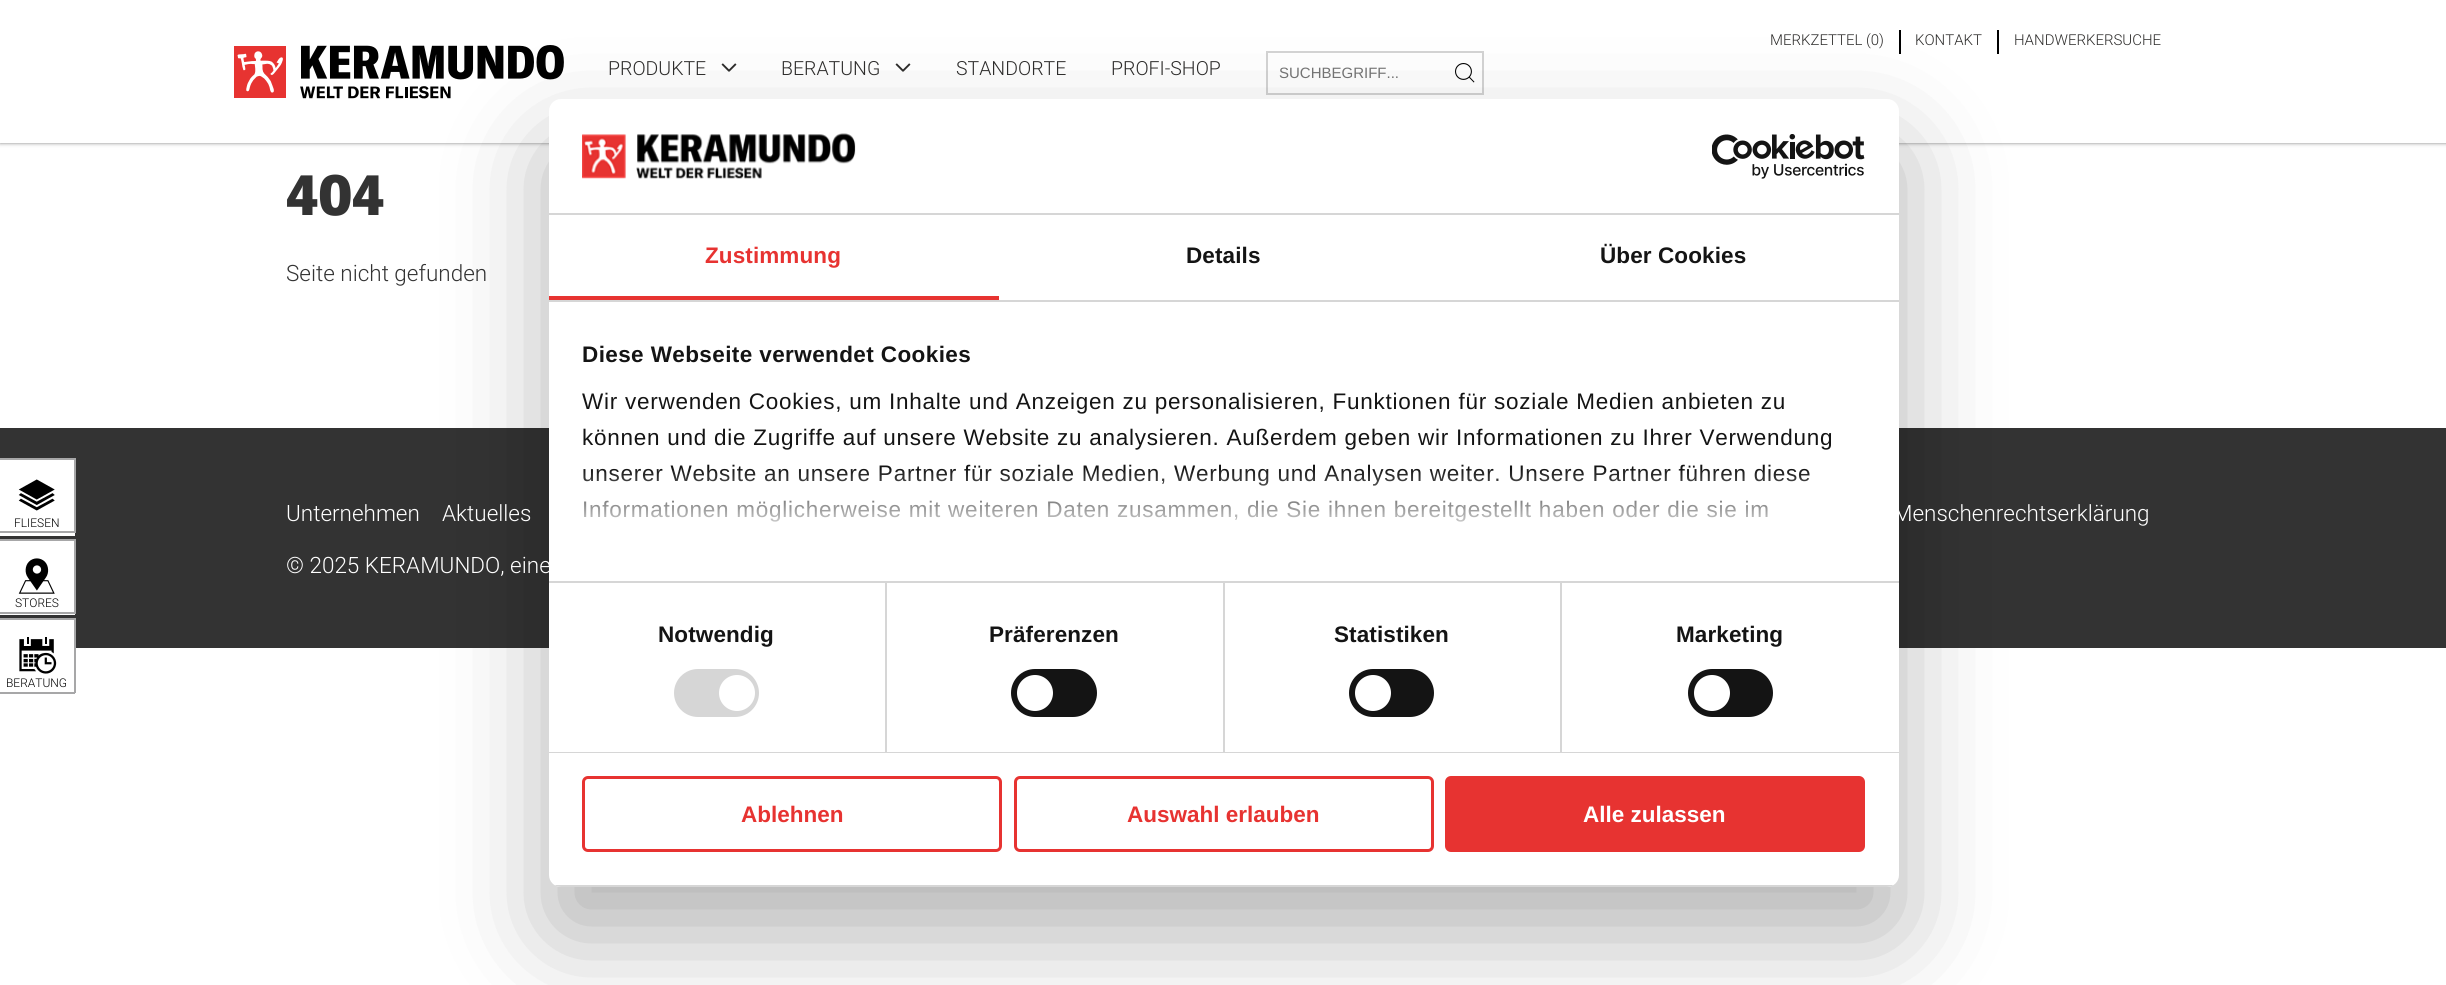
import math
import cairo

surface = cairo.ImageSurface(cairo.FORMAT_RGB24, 2446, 985)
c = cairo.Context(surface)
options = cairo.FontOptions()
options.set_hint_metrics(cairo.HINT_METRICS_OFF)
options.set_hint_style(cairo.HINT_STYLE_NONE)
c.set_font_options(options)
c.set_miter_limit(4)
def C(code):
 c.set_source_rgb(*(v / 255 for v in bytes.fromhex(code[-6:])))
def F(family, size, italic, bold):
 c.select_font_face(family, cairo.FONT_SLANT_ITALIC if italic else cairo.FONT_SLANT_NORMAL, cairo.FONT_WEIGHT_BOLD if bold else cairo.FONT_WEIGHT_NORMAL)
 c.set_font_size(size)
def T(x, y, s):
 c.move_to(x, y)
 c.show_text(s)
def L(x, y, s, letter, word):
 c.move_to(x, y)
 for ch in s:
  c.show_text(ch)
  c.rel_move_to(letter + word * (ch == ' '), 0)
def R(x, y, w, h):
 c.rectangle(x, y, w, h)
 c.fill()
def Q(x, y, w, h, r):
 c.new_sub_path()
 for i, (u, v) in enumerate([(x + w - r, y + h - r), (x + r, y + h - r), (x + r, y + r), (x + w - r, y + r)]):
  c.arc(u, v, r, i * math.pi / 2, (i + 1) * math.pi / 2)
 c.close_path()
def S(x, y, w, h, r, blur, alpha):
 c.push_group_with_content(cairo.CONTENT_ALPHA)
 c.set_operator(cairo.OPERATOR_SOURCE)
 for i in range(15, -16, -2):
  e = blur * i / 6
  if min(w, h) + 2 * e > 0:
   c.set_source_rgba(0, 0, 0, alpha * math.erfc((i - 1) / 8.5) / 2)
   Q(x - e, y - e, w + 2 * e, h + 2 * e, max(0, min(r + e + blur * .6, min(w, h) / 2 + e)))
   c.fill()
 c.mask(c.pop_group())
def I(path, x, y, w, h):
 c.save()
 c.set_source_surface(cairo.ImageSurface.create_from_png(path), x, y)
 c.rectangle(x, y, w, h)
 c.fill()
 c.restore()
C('ffffff')
c.paint()
C('000000')
S(0,0,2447,143,0,2,.5)
C('ffffff')
R(0,0,2446,143)
I('1.png',234,45,330,54)
C('000000')
R(1899,30,2,24)
F('Roboto Light',15,0,0)
C('2e2d2c')
T(1770,45,'MERKZETTEL (0)')
C('000000')
R(1997,30,2,24)
C('2e2d2c')
T(1915,45,'KONTAKT')
T(2014,45,'HANDWERKERSUCHE')
F('Roboto Light',19.5,0,0)
T(608,75,'PRODUKTE')
I('2.png',721,63,16,9)
T(781,75,'BERATUNG')
I('2.png',895,63,16,9)
T(956,75,'STANDORTE')
T(1111,75,'PROFI-SHOP')
c.rectangle(1267,52,216,42)
C('d3d3d3')
c.stroke()
F('Liberation Sans',15,0,0)
C('757575')
T(1279,78,'SUCHBEGRIFF...')
I('3.png',1455,63,20,20)
F('GT America Black',57,0,0)
C('333333')
T(286,215,'404')
F('Roboto Light',22.5,0,0)
T(286,281,'Seite nicht gefunden')
R(0,428,2446,220)
C('000000')
S(549,147,1350,788,12,51,.3)
C('ffffff')
Q(549,99,1350,788,12)
c.fill()
C('d6d6d6')
R(549,213,1350,2)
I('4.png',582,133,274,46)
I('5.png',1712,134,153,45)
R(549,300,1350,2)
C('e73331')
R(549,296,450,4)
F('Liberation Sans',22.5,0,1)
L(705,263,'Zustimmung',.1,0)
C('141414')
L(1186,263,'Details',.1,0)
L(1600,263,'Über Cookies',.1,0)
C('d6d6d6')
R(885,582,2,170)
R(1223,582,2,170)
R(1560,582,2,170)
R(549,581,1350,2)
C('141414')
L(582,362,'Diese Webseite verwendet Cookies',.4,0)
F('Liberation Sans',22.5,0,0)
L(582,409,'Wir verwenden Cookies, um Inhalte und Anzeigen zu personalisieren, Funktionen für soziale Medien anbieten zu',.75,0)
L(582,445,'können und die Zugriffe auf unsere Website zu analysieren. Außerdem geben wir Informationen zu Ihrer Verwendung',.75,0)
L(582,481,'unserer Website an unsere Partner für soziale Medien, Werbung und Analysen weiter. Unsere Partner führen diese',.75,0)
L(582,517,'Informationen möglicherweise mit weiteren Daten zusammen, die Sie ihnen bereitgestellt haben oder die sie im',.75,0)
gradient = cairo.LinearGradient(1208,581,1208,468)
gradient.add_color_stop_rgba(0,1,1,1,1)
gradient.add_color_stop_rgba(.5,1,1,1,.8)
gradient.add_color_stop_rgba(1,1,1,1,0)
c.set_source(gradient)
R(583,470,1227,52)
C('d6d6d6')
R(549,752,1350,1)
F('Liberation Sans',22.5,0,1)
C('141414')
L(658,642,'Notwendig',.1,0)
C('d6d6d6')
Q(674,669,85,48,24)
c.fill()
C('ffffff')
c.arc(737,693,18,0,2 * math.pi)
c.fill()
C('141414')
L(989,642,'Präferenzen',.1,0)
Q(1011,669,86,48,24)
c.fill()
C('ffffff')
c.arc(1035,693,18,0,2 * math.pi)
c.fill()
C('141414')
L(1334,642,'Statistiken',.1,0)
Q(1349,669,85,48,24)
c.fill()
C('ffffff')
c.arc(1373,693,18,0,2 * math.pi)
c.fill()
C('141414')
L(1676,642,'Marketing',.1,0)
Q(1688,669,85,48,24)
c.fill()
C('ffffff')
c.arc(1712,693,18,0,2 * math.pi)
c.fill()
c.save()
Q(549,99,1350,788,12)
c.clip()
C('d6d6d6')
R(549,885,1350,2)
c.restore()
Q(583.5,777.5,417,73,4.5)
C('e73331')
c.set_line_width(3)
c.stroke()
T(741,822,'Ablehnen')
Q(1015.5,777.5,417,73,4.5)
c.stroke()
T(1127,822,'Auswahl erlauben')
Q(1446.5,777.5,417,73,4.5)
c.fill_preserve()
c.stroke()
C('ffffff')
T(1583,822,'Alle zulassen')
R(0,460,75,76)
C('a7a7a8')
R(0,458,75,2)
R(74,458,2,75)
R(0,531,75,2)
I('6.png',18,479,37,32)
F('Roboto Light',12,0,0)
C('000000')
T(14,527,'FLIESEN')
C('ffffff')
R(0,541,75,74)
C('a7a7a8')
R(0,539,75,2)
R(74,539,2,75)
R(0,612,75,2)
I('7.png',18,558,37,36)
C('000000')
T(15,607,'STORES')
C('ffffff')
R(0,620,75,28)
I('8.png',19,637,38,37)
C('a7a7a8')
R(0,618,75,2)
R(74,618,2,75)
R(0,692,75,2)
C('000000')
T(6,687,'BERATUNG')
F('Roboto Light',22.5,0,0)
C('ffffff')
T(286,521,'Unternehmen')
T(442,521,'Aktuelles')
T(1893,521,'Menschenrechtserklärung')
T(286,573,'© 2025 KERAMUNDO, eine')
surface.write_to_png('o.png')
